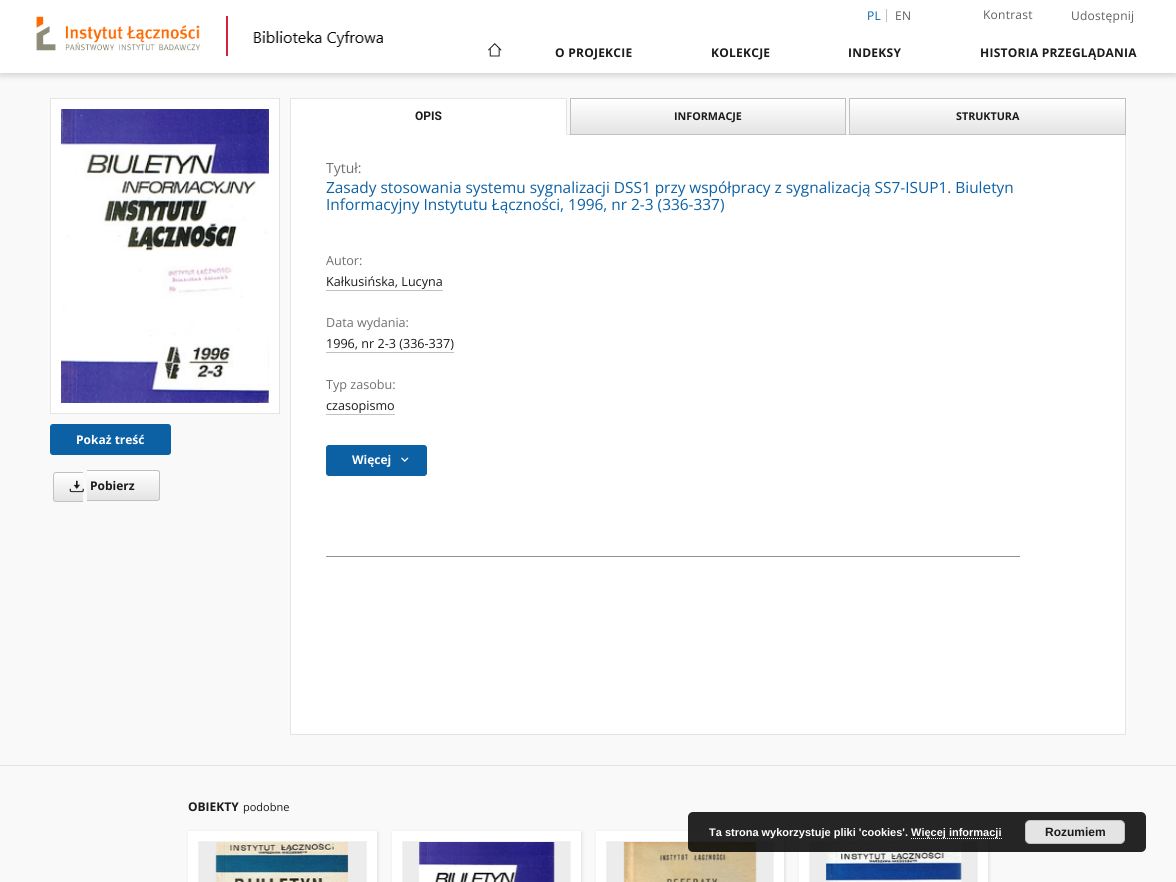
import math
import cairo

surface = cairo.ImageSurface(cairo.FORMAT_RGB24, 1176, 882)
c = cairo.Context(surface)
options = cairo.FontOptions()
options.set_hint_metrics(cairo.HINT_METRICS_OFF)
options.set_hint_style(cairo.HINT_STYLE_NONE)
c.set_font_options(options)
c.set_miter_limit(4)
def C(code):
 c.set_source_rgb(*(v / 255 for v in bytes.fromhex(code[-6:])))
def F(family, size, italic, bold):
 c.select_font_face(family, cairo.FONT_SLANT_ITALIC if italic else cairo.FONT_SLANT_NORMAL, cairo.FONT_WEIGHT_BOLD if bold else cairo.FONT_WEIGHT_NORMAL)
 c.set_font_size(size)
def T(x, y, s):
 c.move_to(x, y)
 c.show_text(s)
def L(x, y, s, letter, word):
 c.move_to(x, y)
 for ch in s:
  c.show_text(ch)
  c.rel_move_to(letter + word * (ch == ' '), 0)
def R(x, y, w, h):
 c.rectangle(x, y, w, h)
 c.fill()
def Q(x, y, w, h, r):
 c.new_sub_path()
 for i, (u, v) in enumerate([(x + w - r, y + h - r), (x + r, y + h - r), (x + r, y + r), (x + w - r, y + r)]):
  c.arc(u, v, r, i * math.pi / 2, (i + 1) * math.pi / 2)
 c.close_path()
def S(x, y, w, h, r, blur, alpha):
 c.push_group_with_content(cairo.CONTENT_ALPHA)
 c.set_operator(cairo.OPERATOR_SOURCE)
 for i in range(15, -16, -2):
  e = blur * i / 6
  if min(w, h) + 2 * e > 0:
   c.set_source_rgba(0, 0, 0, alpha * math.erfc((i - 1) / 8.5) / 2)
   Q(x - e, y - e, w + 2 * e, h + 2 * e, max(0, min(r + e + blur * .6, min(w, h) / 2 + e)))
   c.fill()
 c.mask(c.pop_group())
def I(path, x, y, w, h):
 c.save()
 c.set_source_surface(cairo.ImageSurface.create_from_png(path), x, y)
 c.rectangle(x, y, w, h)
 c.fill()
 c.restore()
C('f9f9f9')
c.paint()
C('000000')
S(0,1,1176,73,0,5,.08)
S(0,4,1176,73,0,2.5,.06)
S(1,3,1174,71,0,2,.06)
C('ffffff')
R(0,0,1176,73)
C('c1c1c1')
R(886,9,1,13)
F('Open Sans',12,0,0)
C('0c61a5')
L(867,20,'PL',.25,0)
C('606060')
L(895,20,'EN',.25,0)
L(983,19,'Kontrast',.25,0)
L(1071,20,'Udostępnij',.25,0)
I('1.png',36,16,164,35)
C('d5233f')
R(226,16,2,40)
I('2.png',253,31,130,16)
I('3.png',488,43,14,14)
F('Open Sans',12,0,1)
C('1a1b1c')
L(555,57,'O PROJEKCIE',.25,0)
L(711,57,'KOLEKCJE',.25,0)
L(848,57,'INDEKSY',.25,0)
L(980,57,'HISTORIA PRZEGLĄDANIA',.25,0)
C('ffffff')
c.rectangle(50.5,98.5,229,315)
c.fill_preserve()
C('e4e4e4')
c.set_line_width(1)
c.stroke()
I('4.png',61,109,208,294)
C('0c61a5')
Q(50.5,424.5,120,30,2.5)
c.fill_preserve()
c.stroke()
C('ffffff')
T(76,444,'Pokaż treść')
c.save()
c.new_path()
c.move_to(56,472)
c.line_to(83,472)
c.line_to(83,502)
c.line_to(56,502)
c.curve_to(54.5,502,53,500.5,53,499)
c.line_to(53,475)
c.curve_to(53,473.5,54.5,472,56,472)
c.close_path()
c.clip()
gradient = cairo.LinearGradient(69,473,69,501)
gradient.add_color_stop_rgba(0,1,1,1,1)
gradient.add_color_stop_rgba(1,0.894,0.894,0.894,1)
c.set_source(gradient)
R(53,473,30,28)
c.restore()
C('c1c1c1')
c.set_fill_rule(cairo.FILL_RULE_EVEN_ODD)
c.new_path()
c.move_to(56,472)
c.line_to(83,472)
c.line_to(83,502)
c.line_to(56,502)
c.curve_to(54.5,502,53,500.5,53,499)
c.line_to(53,475)
c.curve_to(53,473.5,54.5,472,56,472)
c.close_path()
c.move_to(56,473)
c.line_to(83,473)
c.line_to(83,501)
c.line_to(56,501)
c.curve_to(55,501,54,500,54,499)
c.line_to(54,475)
c.curve_to(54,474,55,473,56,473)
c.close_path()
c.fill()
c.save()
c.set_fill_rule(cairo.FILL_RULE_WINDING)
c.new_path()
c.move_to(87,470)
c.line_to(157,470)
c.curve_to(158.5,470,160,471.5,160,473)
c.line_to(160,498)
c.curve_to(160,499.5,158.5,501,157,501)
c.line_to(87,501)
c.close_path()
c.clip()
gradient = cairo.LinearGradient(123,471,123,500)
gradient.add_color_stop_rgba(0,1,1,1,1)
gradient.add_color_stop_rgba(1,0.894,0.894,0.894,1)
c.set_source(gradient)
R(87,471,73,29)
c.restore()
c.new_path()
c.move_to(87,470)
c.line_to(157,470)
c.curve_to(159,470,160,471,160,473)
c.line_to(160,498)
c.curve_to(160,500,159,501,157,501)
c.line_to(87,501)
c.close_path()
c.move_to(87,471)
c.line_to(157,471)
c.curve_to(158,471,159,472,159,473)
c.line_to(159,498)
c.curve_to(159,499,158,500,157,500)
c.line_to(87,500)
c.close_path()
c.fill()
I('5.png',69,480,15,13)
C('1a1b1c')
T(90,490,'Pobierz')
C('e4e4e4')
R(567,134,282,1)
C('ffffff')
R(290,99,277,36)
C('e4e4e4')
R(290,98,277,1)
c.set_fill_rule(cairo.FILL_RULE_WINDING)
c.new_path()
c.move_to(567,98)
c.line_to(567,135)
c.line_to(566,134)
c.line_to(566,99)
c.close_path()
c.fill()
c.new_path()
c.move_to(290,135)
c.line_to(290,98)
c.line_to(291,99)
c.line_to(291,134)
c.close_path()
c.fill()
F('Roboto',12,0,1)
C('1a1b1c')
T(415,120,'OPIS')
gradient = cairo.LinearGradient(708,99,708,134)
gradient.add_color_stop_rgba(0,1,1,1,1)
gradient.add_color_stop_rgba(1,0.894,0.894,0.894,1)
c.set_source(gradient)
R(571,99,274,35)
c.rectangle(570.5,98.5,275,36)
C('c1c1c1')
c.stroke()
F('Open Sans',10.75,0,1)
C('1a1b1c')
T(674,120,'INFORMACJE')
gradient = cairo.LinearGradient(988,99,988,134)
gradient.add_color_stop_rgba(0,1,1,1,1)
gradient.add_color_stop_rgba(1,0.894,0.894,0.894,1)
c.set_source(gradient)
R(850,99,275,35)
c.rectangle(849.5,98.5,276,36)
C('c1c1c1')
c.stroke()
C('1a1b1c')
T(956,120,'STRUKTURA')
C('ffffff')
R(291,135,834,599)
C('e4e4e4')
R(1125,135,1,600)
R(290,734,836,1)
R(290,135,1,600)
F('Open Sans',14,0,0)
C('707070')
T(326,173,'Tytuł:')
F('Open Sans',15.4,0,0)
C('0c61a5')
T(326,193,'Zasady stosowania systemu sygnalizacji DSS1 przy współpracy z sygnalizacją SS7-ISUP1. Biuletyn')
T(326,210,'Informacyjny Instytutu Łączności, 1996, nr 2-3 (336-337)')
F('Open Sans',12.6,0,0)
C('707070')
T(326,265,'Autor:')
C('1a1b1c')
T(326,286,'Kałkusińska, Lucyna')
C('c1c1c1')
R(326,290,117,1)
C('707070')
T(326,327,'Data wydania:')
C('1a1b1c')
T(326,348,'1996, nr 2-3 (336-337)')
C('c1c1c1')
R(326,352,128,1)
C('707070')
T(326,389,'Typ zasobu:')
C('1a1b1c')
T(326,410,'czasopismo')
C('c1c1c1')
R(326,414,69,1)
C('0c61a5')
Q(326.5,445.5,100,30,2.5)
c.fill_preserve()
c.stroke()
F('Open Sans',12,0,1)
C('ffffff')
T(352,464,'Więcej')
I('6.png',401,457,8,5)
C('939393')
R(326,556,694,1)
C('e4e4e4')
R(0,765,1176,1)
C('1a1b1c')
T(188,811,'OBIEKTY')
F('Open Sans',11,0,0)
T(243,811,'podobne')
C('dedede')
S(189,832,189,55,0,1.5,1)
C('ffffff')
R(188,831,189,51)
C('ececec')
c.rectangle(198.5,841.5,168,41)
c.fill_preserve()
C('f1f1f1')
c.stroke()
I('7.png',215,842,134,40)
C('dedede')
S(393,832,189,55,0,1.5,1)
C('ffffff')
R(392,831,189,51)
C('ececec')
c.rectangle(402.5,841.5,168,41)
c.fill_preserve()
C('f1f1f1')
c.stroke()
I('8.png',419,842,136,40)
C('dedede')
S(597,832,188,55,0,1.5,1)
C('ffffff')
R(596,831,188,51)
C('ececec')
c.rectangle(606.5,841.5,167,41)
c.fill_preserve()
C('f1f1f1')
c.stroke()
I('9.png',623,842,134,40)
C('dedede')
S(800,832,189,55,0,1.5,1)
C('ffffff')
R(799,831,189,51)
C('ececec')
c.rectangle(809.5,841.5,168,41)
c.fill_preserve()
C('f1f1f1')
c.stroke()
I('10.png',826,842,136,40)
c.set_source_rgba(0,0,0,0.85)
Q(688,812,458,40,5)
c.fill()
F('Liberation Sans',11,0,1)
C('ffffff')
T(709,836,'Ta strona wykorzystuje pliki \'cookies\'.')
c.new_path()
c.move_to(911,838.5)
c.line_to(1002,838.5)
c.set_dash([1,1])
c.stroke()
T(911,836,'Więcej informacji')
C('e4e4e4')
Q(1025.5,820.5,99,23,4.5)
c.fill_preserve()
C('c1c1c1')
c.set_dash([])
c.stroke()
F('Liberation Sans',12,0,1)
C('1a1b1c')
T(1045,836,'Rozumiem')
surface.write_to_png('o.png')
